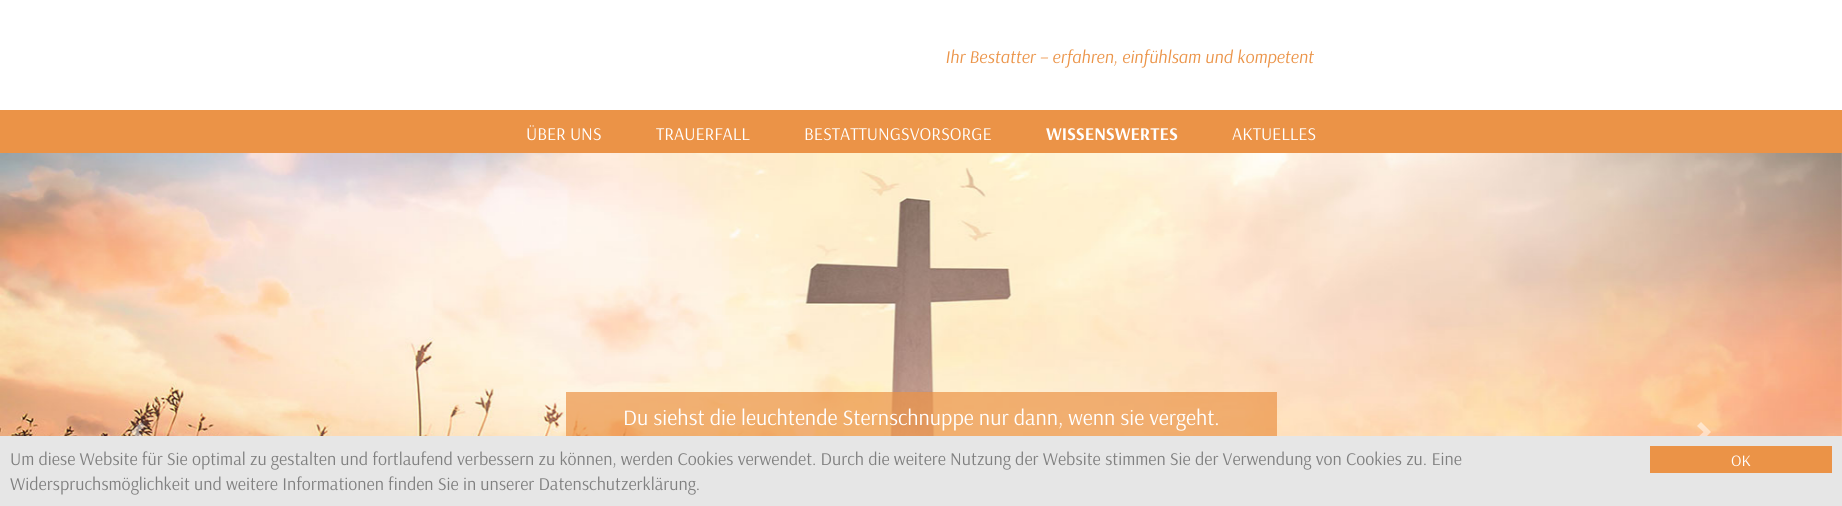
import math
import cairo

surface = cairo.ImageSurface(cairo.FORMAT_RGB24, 1842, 506)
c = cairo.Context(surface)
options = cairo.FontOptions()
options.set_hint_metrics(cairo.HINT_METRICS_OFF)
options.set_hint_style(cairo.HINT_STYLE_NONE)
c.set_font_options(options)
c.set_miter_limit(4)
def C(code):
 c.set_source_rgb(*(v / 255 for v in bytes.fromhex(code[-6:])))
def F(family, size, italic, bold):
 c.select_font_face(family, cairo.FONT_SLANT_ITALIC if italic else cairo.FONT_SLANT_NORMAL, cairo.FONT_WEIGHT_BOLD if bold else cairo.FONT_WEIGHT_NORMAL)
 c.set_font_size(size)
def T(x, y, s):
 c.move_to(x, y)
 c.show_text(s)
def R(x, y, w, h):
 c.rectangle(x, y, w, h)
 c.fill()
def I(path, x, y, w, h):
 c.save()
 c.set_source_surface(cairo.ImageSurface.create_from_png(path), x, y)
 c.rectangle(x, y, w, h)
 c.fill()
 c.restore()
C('ffffff')
c.paint()
F('Arsenal',18,1,0)
C('eb9347')
T(945,63,'Ihr Bestatter – erfahren, einfühlsam und kompetent')
R(0,110,1842,43)
F('Arsenal',18,0,0)
C('ffffff')
T(526,140,'ÜBER UNS')
T(656,140,'TRAUERFALL')
T(804,140,'BESTATTUNGSVORSORGE')
F('Arsenal',18,0,1)
T(1046,140,'WISSENSWERTES')
F('Arsenal',18,0,0)
T(1232,140,'AKTUELLES')
I('1.png',1841,153,1,283)
I('2.png',0,153,1842,283)
c.set_source_rgba(1,1,1,0.5)
c.new_path()
c.move_to(141,422)
c.line_to(131,432)
c.line_to(141,442)
c.line_to(145,438)
c.line_to(138.5,432)
c.line_to(145,426)
c.close_path()
c.fill()
c.set_source_rgba(0.922,0.576,0.278,0.7)
R(566,392,711,44)
F('Arsenal',22,0,0)
C('ffffff')
T(623,425,'Du siehst die leuchtende Sternschnuppe nur dann, wenn sie vergeht.')
c.set_source_rgba(1,1,1,0.5)
c.new_path()
c.move_to(1701,422)
c.line_to(1697,426)
c.line_to(1703.5,432)
c.line_to(1697,438)
c.line_to(1701,442)
c.line_to(1711,432)
c.close_path()
c.fill()
C('e6e6e6')
R(0,436,1842,70)
F('Arsenal',18,0,0)
C('808080')
T(10,465,'Um diese Website für Sie optimal zu gestalten und fortlaufend verbessern zu können, werden Cookies verwendet. Durch die weitere Nutzung der Website stimmen Sie der Verwendung von Cookies zu. Eine')
C('eb9347')
R(1650,446,182,27)
F('Arsenal',16,0,0)
C('ffffff')
T(1731,466,'OK')
F('Arsenal',18,0,0)
C('808080')
T(10,490,'Widerspruchsmöglichkeit und weitere Informationen finden Sie in unserer Datenschutzerklärung.')
surface.write_to_png('o.png')
